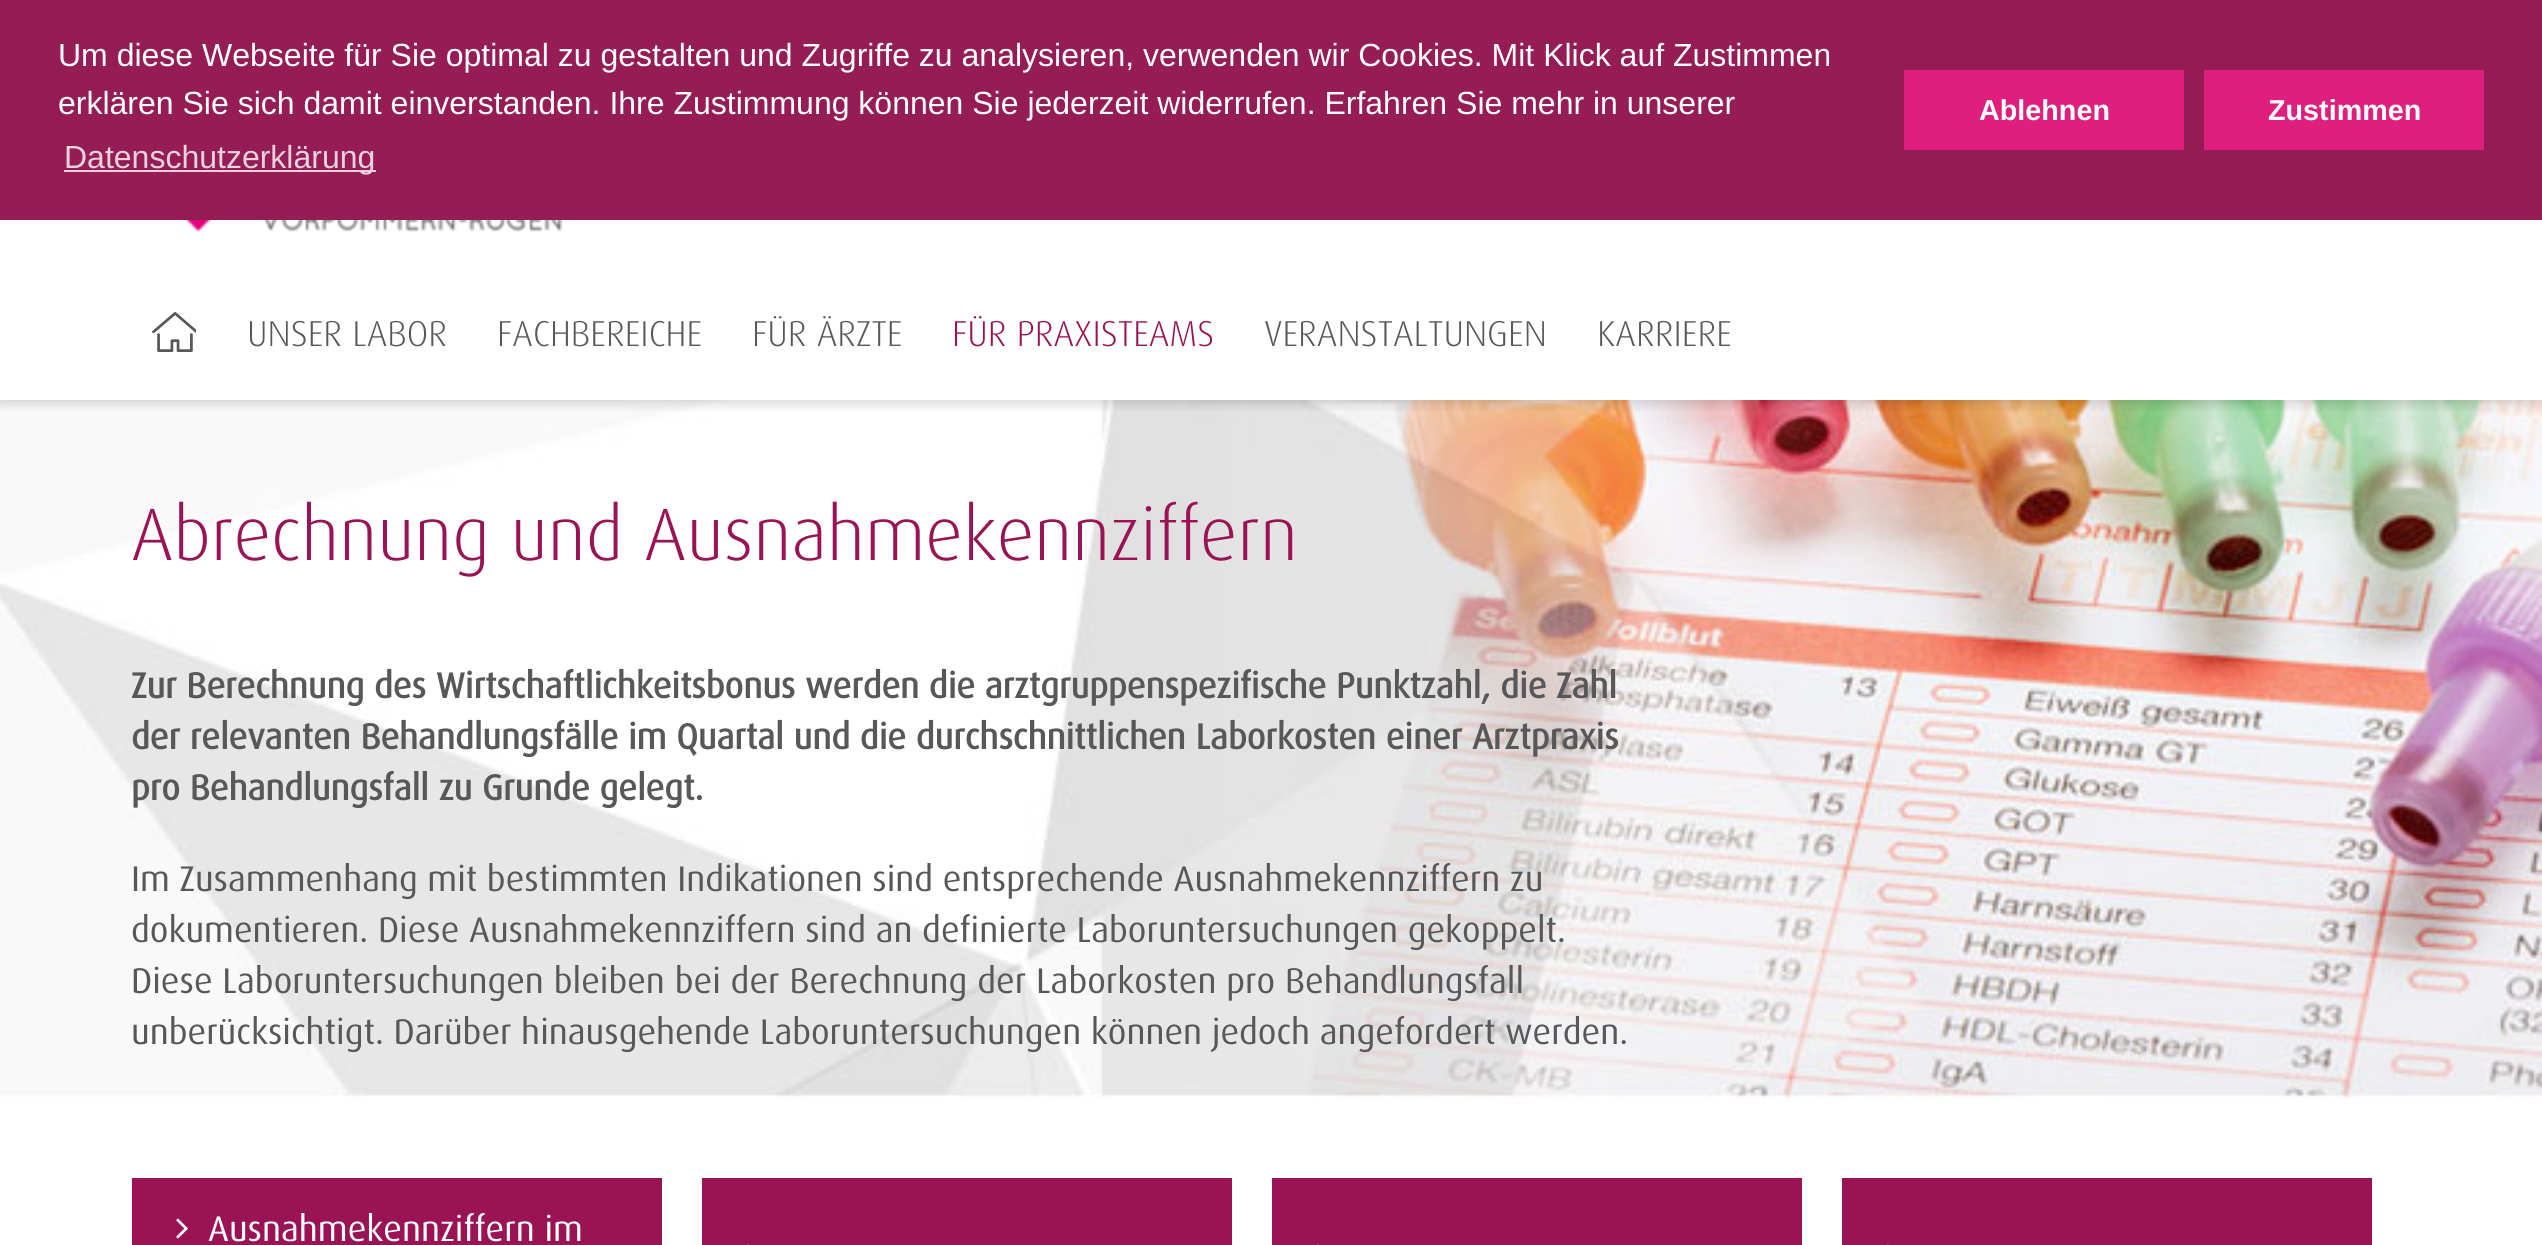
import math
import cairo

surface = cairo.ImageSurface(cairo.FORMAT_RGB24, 2542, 1245)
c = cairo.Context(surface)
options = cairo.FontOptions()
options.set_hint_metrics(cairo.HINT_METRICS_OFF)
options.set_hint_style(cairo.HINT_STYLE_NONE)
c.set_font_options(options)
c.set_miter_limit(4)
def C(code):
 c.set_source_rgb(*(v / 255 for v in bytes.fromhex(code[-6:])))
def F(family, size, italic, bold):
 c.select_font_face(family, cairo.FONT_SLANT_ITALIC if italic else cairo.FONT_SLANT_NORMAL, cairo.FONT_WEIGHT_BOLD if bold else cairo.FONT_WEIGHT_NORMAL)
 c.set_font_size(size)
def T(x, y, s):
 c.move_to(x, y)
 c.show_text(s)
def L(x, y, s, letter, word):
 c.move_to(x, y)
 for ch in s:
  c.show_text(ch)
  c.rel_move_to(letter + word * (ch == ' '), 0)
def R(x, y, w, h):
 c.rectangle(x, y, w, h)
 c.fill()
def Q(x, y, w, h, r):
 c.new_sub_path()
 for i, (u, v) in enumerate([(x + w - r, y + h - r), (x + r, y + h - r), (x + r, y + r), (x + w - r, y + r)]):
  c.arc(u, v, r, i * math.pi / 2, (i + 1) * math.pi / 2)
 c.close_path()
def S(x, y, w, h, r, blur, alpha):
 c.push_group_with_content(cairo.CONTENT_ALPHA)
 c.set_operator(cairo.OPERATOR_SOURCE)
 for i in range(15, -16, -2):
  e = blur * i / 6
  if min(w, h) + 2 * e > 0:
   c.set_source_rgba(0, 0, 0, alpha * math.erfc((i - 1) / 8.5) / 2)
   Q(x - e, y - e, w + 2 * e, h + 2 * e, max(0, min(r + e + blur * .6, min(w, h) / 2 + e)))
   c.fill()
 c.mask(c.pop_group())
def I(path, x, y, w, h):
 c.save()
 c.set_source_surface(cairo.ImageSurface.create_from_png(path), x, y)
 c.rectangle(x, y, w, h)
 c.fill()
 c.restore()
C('ffffff')
c.paint()
I('3.png',0,400,2542,698)
c.save()
c.rectangle(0,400,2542,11)
c.clip()
C('000000')
S(-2,-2,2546,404,0,7,.2)
c.restore()
C('951c55')
R(0,0,2542,220)
F('Liberation Sans',32,0,0)
C('ffffff')
T(58,66,'Um diese Webseite für Sie optimal zu gestalten und Zugriffe zu analysieren, verwenden wir Cookies. Mit Klick auf Zustimmen')
T(58,114,'erklären Sie sich damit einverstanden. Ihre Zustimmung können Sie jederzeit widerrufen. Erfahren Sie mehr in unserer')
C('ead2dd')
R(64,170,312,2)
T(64,168,'Datenschutzerklärung')
C('df1f7d')
R(1904,70,280,80)
F('Liberation Sans',28.75,0,1)
C('ffffff')
T(1979,120,'Ablehnen')
C('df1f7d')
R(2204,70,280,80)
C('ffffff')
T(2268,120,'Zustimmen')
I('1.png',183,220,380,12)
I('2.png',152,312,44,40)
F('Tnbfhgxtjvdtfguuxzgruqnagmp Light',36,0,0)
C('58585a')
T(247,346,'UNSER LABOR')
T(497,346,'FACHBEREICHE')
T(752,346,'FÜR ÄRZTE')
C('991355')
T(952,346,'FÜR PRAXISTEAMS')
C('58585a')
T(1264,346,'VERANSTALTUNGEN')
T(1597,346,'KARRIERE')
F('Tnbfhgxtjvdtfguuxzgruqnagmp Light',74.25,0,0)
C('991355')
T(131,560,'Abrechnung und Ausnahmekennziffern')
F('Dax',35.7,0,1)
C('58585a')
L(131,698,'Zur Berechnung des Wirtschaftlichkeitsbonus werden die arztgruppenspezifische Punktzahl, die Zahl',0,-.1)
T(131,749,'der relevanten Behandlungsfälle im Quartal und die durchschnittlichen Laborkosten einer Arztpraxis')
T(131,800,'pro Behandlungsfall zu Grunde gelegt.')
F('Dax',35.7,0,0)
L(131,891,'Im Zusammenhang mit bestimmten Indikationen sind entsprechende Ausnahmekennziffern zu',0,-.25)
L(131,942,'dokumentieren. Diese Ausnahmekennziffern sind an definierte Laboruntersuchungen gekoppelt.',0,-.25)
T(131,993,'Diese Laboruntersuchungen bleiben bei der Berechnung der Laborkosten pro Behandlungsfall')
L(131,1044,'unberücksichtigt. Darüber hinausgehende Laboruntersuchungen können jedoch angefordert werden.',0,-.25)
C('991355')
R(132,1178,530,67)
I('4.png',176,1218,12,21)
C('ffffff')
T(208,1241,'Ausnahmekennziffern im')
C('991355')
R(702,1178,530,67)
I('5.png',747,1244,2,1)
R(1272,1178,530,67)
I('5.png',1317,1244,2,1)
R(1842,1178,530,67)
I('5.png',1887,1244,2,1)
surface.write_to_png('o.png')
